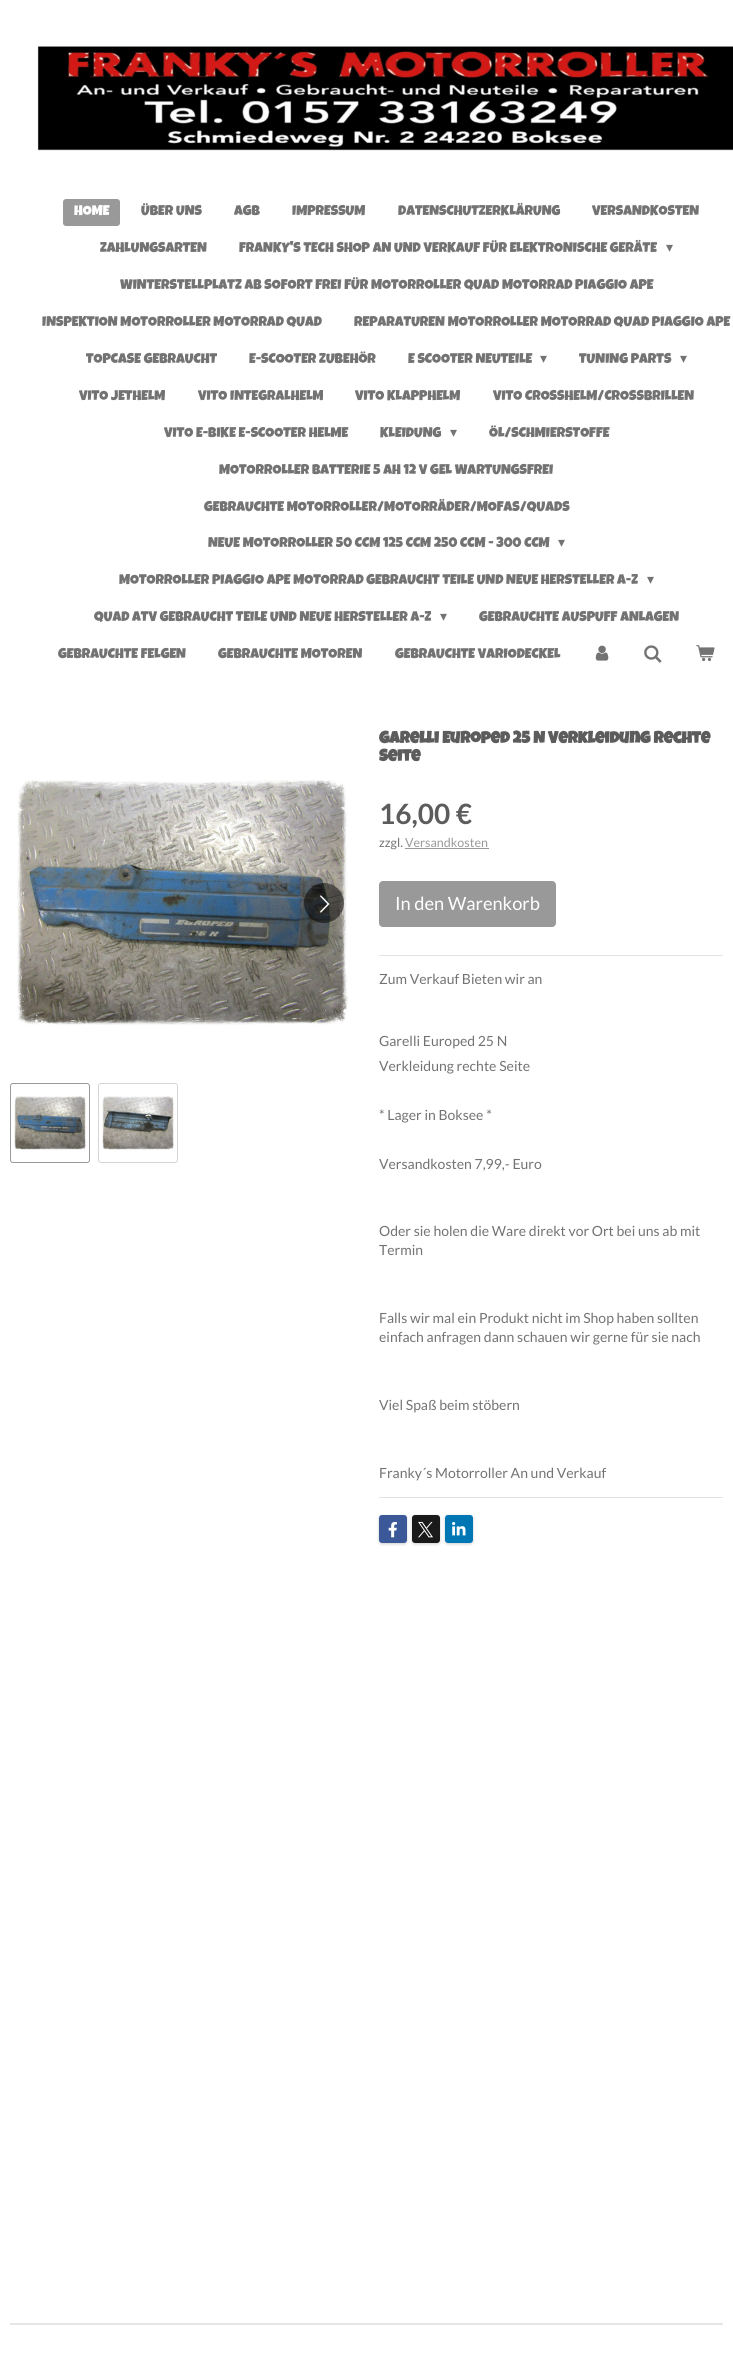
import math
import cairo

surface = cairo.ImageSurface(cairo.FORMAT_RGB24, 733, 2365)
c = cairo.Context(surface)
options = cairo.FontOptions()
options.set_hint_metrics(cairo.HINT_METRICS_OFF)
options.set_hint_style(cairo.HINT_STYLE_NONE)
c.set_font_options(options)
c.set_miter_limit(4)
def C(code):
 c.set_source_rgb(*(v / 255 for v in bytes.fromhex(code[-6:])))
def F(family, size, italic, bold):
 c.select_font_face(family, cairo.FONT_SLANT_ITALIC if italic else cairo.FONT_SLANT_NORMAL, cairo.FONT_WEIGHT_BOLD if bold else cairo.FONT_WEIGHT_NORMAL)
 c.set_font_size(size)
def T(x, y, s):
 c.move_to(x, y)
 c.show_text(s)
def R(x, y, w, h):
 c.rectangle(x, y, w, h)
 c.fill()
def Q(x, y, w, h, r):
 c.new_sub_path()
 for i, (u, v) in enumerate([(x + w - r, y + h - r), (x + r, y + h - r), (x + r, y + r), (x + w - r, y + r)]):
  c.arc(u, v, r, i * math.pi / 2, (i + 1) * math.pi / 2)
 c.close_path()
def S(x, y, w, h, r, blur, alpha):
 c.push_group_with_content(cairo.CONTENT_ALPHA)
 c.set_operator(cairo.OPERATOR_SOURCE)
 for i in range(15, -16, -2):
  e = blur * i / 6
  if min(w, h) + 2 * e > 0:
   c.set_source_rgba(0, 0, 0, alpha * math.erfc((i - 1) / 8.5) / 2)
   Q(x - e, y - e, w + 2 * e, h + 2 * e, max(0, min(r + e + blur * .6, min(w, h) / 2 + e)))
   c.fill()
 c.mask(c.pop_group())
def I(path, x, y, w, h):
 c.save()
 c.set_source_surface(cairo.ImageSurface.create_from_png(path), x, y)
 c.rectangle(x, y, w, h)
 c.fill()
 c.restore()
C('ffffff')
c.paint()
I('1.png',37,46,696,105)
C('999999')
Q(63,199,57,27,3)
c.fill()
F('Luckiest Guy',14,0,0)
C('ffffff')
T(74,215,'HOME')
C('737373')
T(141,215,'ÜBER UNS')
T(234,215,'AGB')
T(292,215,'IMPRESSUM')
T(398,215,'DATENSCHUTZERKLÄRUNG')
T(592,215,'VERSANDKOSTEN')
T(100,252,'ZAHLUNGSARTEN')
T(239,252,'FRANKY\'S TECH SHOP AN UND VERKAUF FÜR ELEKTRONISCHE GERÄTE')
F('DejaVu Sans',14,0,0)
T(666,252,'▾')
F('Luckiest Guy',14,0,0)
T(120,289,'WINTERSTELLPLATZ AB SOFORT FREI FÜR MOTORROLLER QUAD MOTORRAD PIAGGIO APE')
T(42,326,'INSPEKTION MOTORROLLER MOTORRAD QUAD')
T(354,326,'REPARATUREN MOTORROLLER MOTORRAD QUAD PIAGGIO APE')
T(86,363,'TOPCASE GEBRAUCHT')
T(249,363,'E-SCOOTER ZUBEHÖR')
T(408,363,'E SCOOTER NEUTEILE')
F('DejaVu Sans',14,0,0)
T(540,363,'▾')
F('Luckiest Guy',14,0,0)
T(579,363,'TUNING PARTS')
F('DejaVu Sans',14,0,0)
T(680,363,'▾')
F('Luckiest Guy',14,0,0)
T(79,400,'VITO JETHELM')
T(198,400,'VITO INTEGRALHELM')
T(355,400,'VITO KLAPPHELM')
T(493,400,'VITO CROSSHELM/CROSSBRILLEN')
T(164,437,'VITO E-BIKE E-SCOOTER HELME')
T(380,437,'KLEIDUNG')
F('DejaVu Sans',14,0,0)
T(450,437,'▾')
F('Luckiest Guy',14,0,0)
T(489,437,'ÖL/SCHMIERSTOFFE')
T(219,474,'MOTORROLLER BATTERIE 5 AH 12 V GEL WARTUNGSFREI')
T(204,511,'GEBRAUCHTE MOTORROLLER/MOTORRÄDER/MOFAS/QUADS')
T(208,547,'NEUE MOTORROLLER 50 CCM 125 CCM 250 CCM - 300 CCM')
F('DejaVu Sans',14,0,0)
T(558,547,'▾')
F('Luckiest Guy',14,0,0)
T(119,584,'MOTORROLLER PIAGGIO APE MOTORRAD GEBRAUCHT TEILE UND NEUE HERSTELLER A-Z')
F('DejaVu Sans',14,0,0)
T(647,584,'▾')
F('Luckiest Guy',14,0,0)
T(94,621,'QUAD ATV GEBRAUCHT TEILE UND NEUE HERSTELLER A-Z')
F('DejaVu Sans',14,0,0)
T(440,621,'▾')
F('Luckiest Guy',14,0,0)
T(479,621,'GEBRAUCHTE AUSPUFF ANLAGEN')
T(58,658,'GEBRAUCHTE FELGEN')
T(218,658,'GEBRAUCHTE MOTOREN')
T(395,658,'GEBRAUCHTE VARIODECKEL')
I('2.png',595,645,14,16)
I('3.png',644,645,18,18)
I('4.png',696,645,19,17)
F('Luckiest Guy',16.5,0,1)
C('5c5c5c')
T(379,743,'Garelli Europed 25 N Verkleidung rechte')
T(379,761,'Seite')
I('5.png',17,780,331,246)
c.set_source_rgba(0,0,0,0.5)
c.arc(324,903,20,0,2 * math.pi)
c.fill()
I('6.png',320,895,10,18)
Q(10.5,1083.5,79,79,2.5)
C('999999')
c.set_line_width(1)
c.stroke()
I('7.png',14,1096,72,54)
Q(98.5,1083.5,79,79,2.5)
C('d5d5d5')
c.stroke()
I('8.png',102,1096,72,54)
F('Lato',28,0,1)
C('5c5c5c')
T(379,824,'16,00 €')
F('Lato',12.5,0,0)
C('737373')
T(379,847,'zzgl.')
C('999999')
T(405,847,'Versandkosten')
R(405,848,84,1)
Q(379,881,177,46,4)
c.fill()
F('Lato',18.25,0,0)
C('ffffff')
T(395,910,'In den Warenkorb')
C('e3e3e3')
R(379,955,344,1)
F('Lato',14,0,0)
C('737373')
T(379,984,'Zum Verkauf Bieten wir an')
T(379,1046,'Garelli Europed 25 N')
T(379,1071,'Verkleidung rechte Seite')
T(379,1120,'* Lager in Boksee *')
T(379,1169,'Versandkosten 7,99,- Euro')
T(379,1236,'Oder sie holen die Ware direkt vor Ort bei uns ab mit')
T(379,1255,'Termin')
T(379,1323,'Falls wir mal ein Produkt nicht im Shop haben sollten')
T(379,1342,'einfach anfragen dann schauen wir gerne für sie nach')
T(379,1410,'Viel Spaß beim stöbern')
T(379,1478,'Franky´s Motorroller An und Verkauf')
C('e3e3e3')
R(379,1497,344,1)
C('000000')
S(379,1516,28,28,3,1.5,.2)
C('3b5998')
Q(379,1515,28,28,3)
c.fill()
I('9.png',388,1521,9,17)
C('000000')
S(412,1516,28,28,3,1.5,.2)
C('1a1a1a')
Q(412,1515,28,28,3)
c.fill()
I('10.png',418,1521,15,17)
C('000000')
S(445,1516,28,28,3,1.5,.2)
C('0077b5')
Q(445,1515,28,28,3)
c.fill()
I('11.png',452,1521,14,15)
C('e6e6e6')
R(10,2323,713,2)
surface.write_to_png('o.png')
